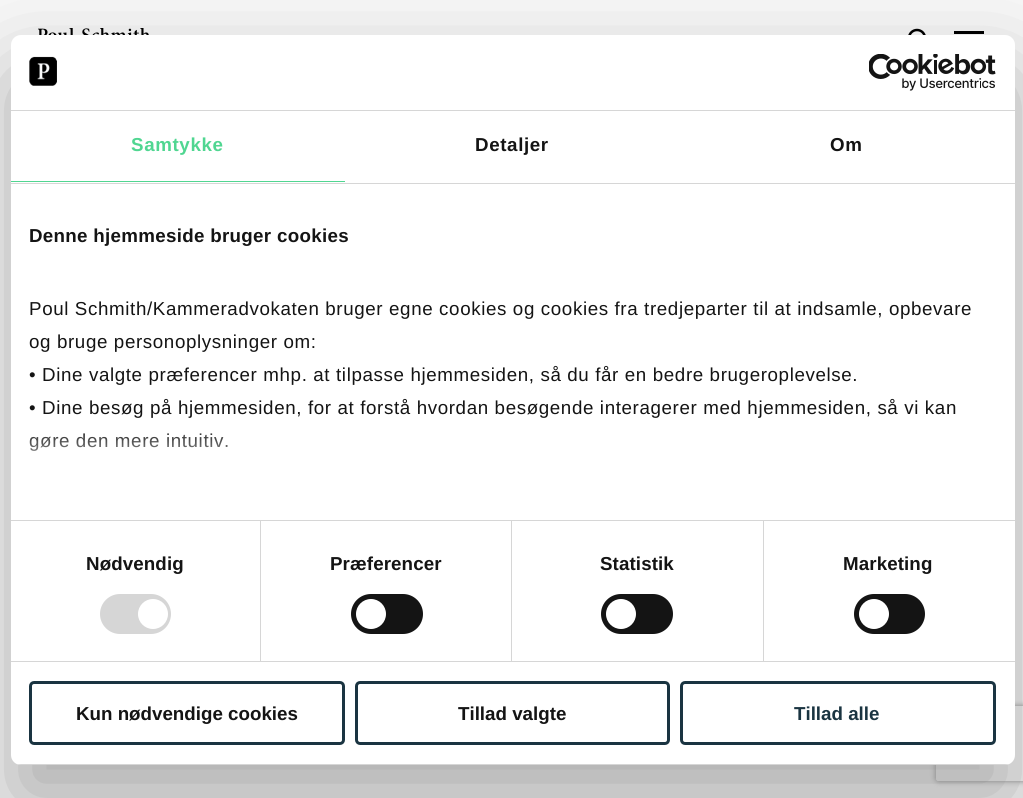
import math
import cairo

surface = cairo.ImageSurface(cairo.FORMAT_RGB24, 1023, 798)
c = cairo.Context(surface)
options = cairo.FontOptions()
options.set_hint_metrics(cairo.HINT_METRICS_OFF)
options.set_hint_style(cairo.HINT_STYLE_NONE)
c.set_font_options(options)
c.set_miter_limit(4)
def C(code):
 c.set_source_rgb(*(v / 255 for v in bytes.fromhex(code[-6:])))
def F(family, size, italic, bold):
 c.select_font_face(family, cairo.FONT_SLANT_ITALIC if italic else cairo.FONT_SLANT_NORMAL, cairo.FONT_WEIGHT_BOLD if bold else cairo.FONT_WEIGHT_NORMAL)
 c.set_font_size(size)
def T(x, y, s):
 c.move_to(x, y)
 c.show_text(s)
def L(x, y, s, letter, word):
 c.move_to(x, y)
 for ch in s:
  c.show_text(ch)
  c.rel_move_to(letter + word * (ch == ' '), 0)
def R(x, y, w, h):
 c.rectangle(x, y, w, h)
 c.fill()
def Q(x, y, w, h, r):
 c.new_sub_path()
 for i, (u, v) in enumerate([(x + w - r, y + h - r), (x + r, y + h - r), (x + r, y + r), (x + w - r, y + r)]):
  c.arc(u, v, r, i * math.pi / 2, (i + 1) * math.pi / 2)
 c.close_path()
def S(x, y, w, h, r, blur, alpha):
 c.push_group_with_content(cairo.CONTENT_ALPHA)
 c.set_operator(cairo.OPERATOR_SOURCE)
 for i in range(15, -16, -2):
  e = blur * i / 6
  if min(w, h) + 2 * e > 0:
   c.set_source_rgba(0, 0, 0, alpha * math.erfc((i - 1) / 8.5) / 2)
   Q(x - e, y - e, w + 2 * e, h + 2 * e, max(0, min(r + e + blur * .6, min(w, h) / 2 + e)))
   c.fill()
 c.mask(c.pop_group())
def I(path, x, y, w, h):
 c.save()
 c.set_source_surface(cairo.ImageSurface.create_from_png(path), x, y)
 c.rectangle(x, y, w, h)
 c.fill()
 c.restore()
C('f6f6f6')
c.paint()
I('1.png',38,28,111,7)
c.arc(917,38,8,0,2 * math.pi)
C('000000')
c.set_line_width(2.5)
c.stroke()
R(954,31,30,3)
C('000000')
S(11,75,1004,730,10,42.5,.3)
c.save()
c.set_fill_rule(cairo.FILL_RULE_EVEN_ODD)
c.new_path()
c.move_to(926,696)
c.line_to(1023,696)
c.line_to(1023,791)
c.line_to(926,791)
c.close_path()
c.move_to(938.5,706)
c.line_to(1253.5,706)
c.curve_to(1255,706,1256,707,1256,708.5)
c.line_to(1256,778.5)
c.curve_to(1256,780,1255,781,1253.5,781)
c.line_to(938.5,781)
c.curve_to(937,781,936,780,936,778.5)
c.line_to(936,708.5)
c.curve_to(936,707,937,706,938.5,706)
c.close_path()
c.clip()
C('808080')
S(936,706,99,75,2.5,3,1)
c.restore()
C('ffffff')
Q(11,35,1004,730,10)
c.fill()
C('d6d6d6')
R(11,110,1004,1)
I('2.png',29,56,28,30)
I('3.png',869,54,127,37)
R(11,183,1004,1)
C('50d691')
R(11,181,334,1)
F('Liberation Sans',18.75,0,1)
L(131,151,'Samtykke',.62,0)
C('141414')
L(475,151,'Detaljer',.62,0)
L(830,151,'Om',.62,0)
C('d6d6d6')
R(11,520,1004,1)
C('141414')
L(29,242,'Denne hjemmeside bruger cookies',.3,0)
F('Liberation Sans',18.75,0,0)
L(29,315,'Poul Schmith/Kammeradvokaten bruger egne cookies og cookies fra tredjeparter til at indsamle, opbevare',.62,0)
L(29,348,'og bruge personoplysninger om:',.62,0)
L(29,381,'• Dine valgte præferencer mhp. at tilpasse hjemmesiden, så du får en bedre brugeroplevelse.',.62,0)
L(29,414,'• Dine besøg på hjemmesiden, for at forstå hvordan besøgende interagerer med hjemmesiden, så vi kan',.62,0)
L(29,447,'gøre den mere intuitiv.',.62,0)
gradient = cairo.LinearGradient(504,519,504,426)
gradient.add_color_stop_rgba(0,1,1,1,1)
gradient.add_color_stop_rgba(.5,1,1,1,.8)
gradient.add_color_stop_rgba(1,1,1,1,0)
c.set_source(gradient)
R(29,433,199,18)
C('d6d6d6')
R(11,661,1004,1)
R(260,521,1,140)
F('Liberation Sans',18.75,0,1)
C('141414')
L(86,570,'Nødvendig',.1,0)
C('d6d6d6')
Q(100,594,71,40,20)
c.fill()
C('ffffff')
c.arc(153,614,15,0,2 * math.pi)
c.fill()
C('d6d6d6')
R(511,521,1,140)
C('141414')
L(330,570,'Præferencer',.1,0)
Q(351,594,72,40,20)
c.fill()
C('ffffff')
c.arc(371,614,15,0,2 * math.pi)
c.fill()
C('d6d6d6')
R(763,521,1,140)
C('141414')
L(600,570,'Statistik',.1,0)
Q(601,594,72,40,20)
c.fill()
C('ffffff')
c.arc(621,614,15,0,2 * math.pi)
c.fill()
C('141414')
L(843,570,'Marketing',.1,0)
Q(854,594,71,40,20)
c.fill()
C('ffffff')
c.arc(874,614,15,0,2 * math.pi)
c.fill()
c.save()
Q(11,35,1004,730,10)
c.clip()
C('d6d6d6')
R(11,764,1004,1)
c.restore()
Q(30.5,682.5,313,61,3.5)
C('1a3441')
c.set_line_width(3)
c.stroke()
C('141414')
T(76,720,'Kun nødvendige cookies')
Q(356.5,682.5,312,61,3.5)
C('1a3441')
c.stroke()
C('141414')
T(458,720,'Tillad valgte')
Q(681.5,682.5,313,61,3.5)
C('1a3441')
c.stroke()
T(794,720,'Tillad alle')
surface.write_to_png('o.png')
